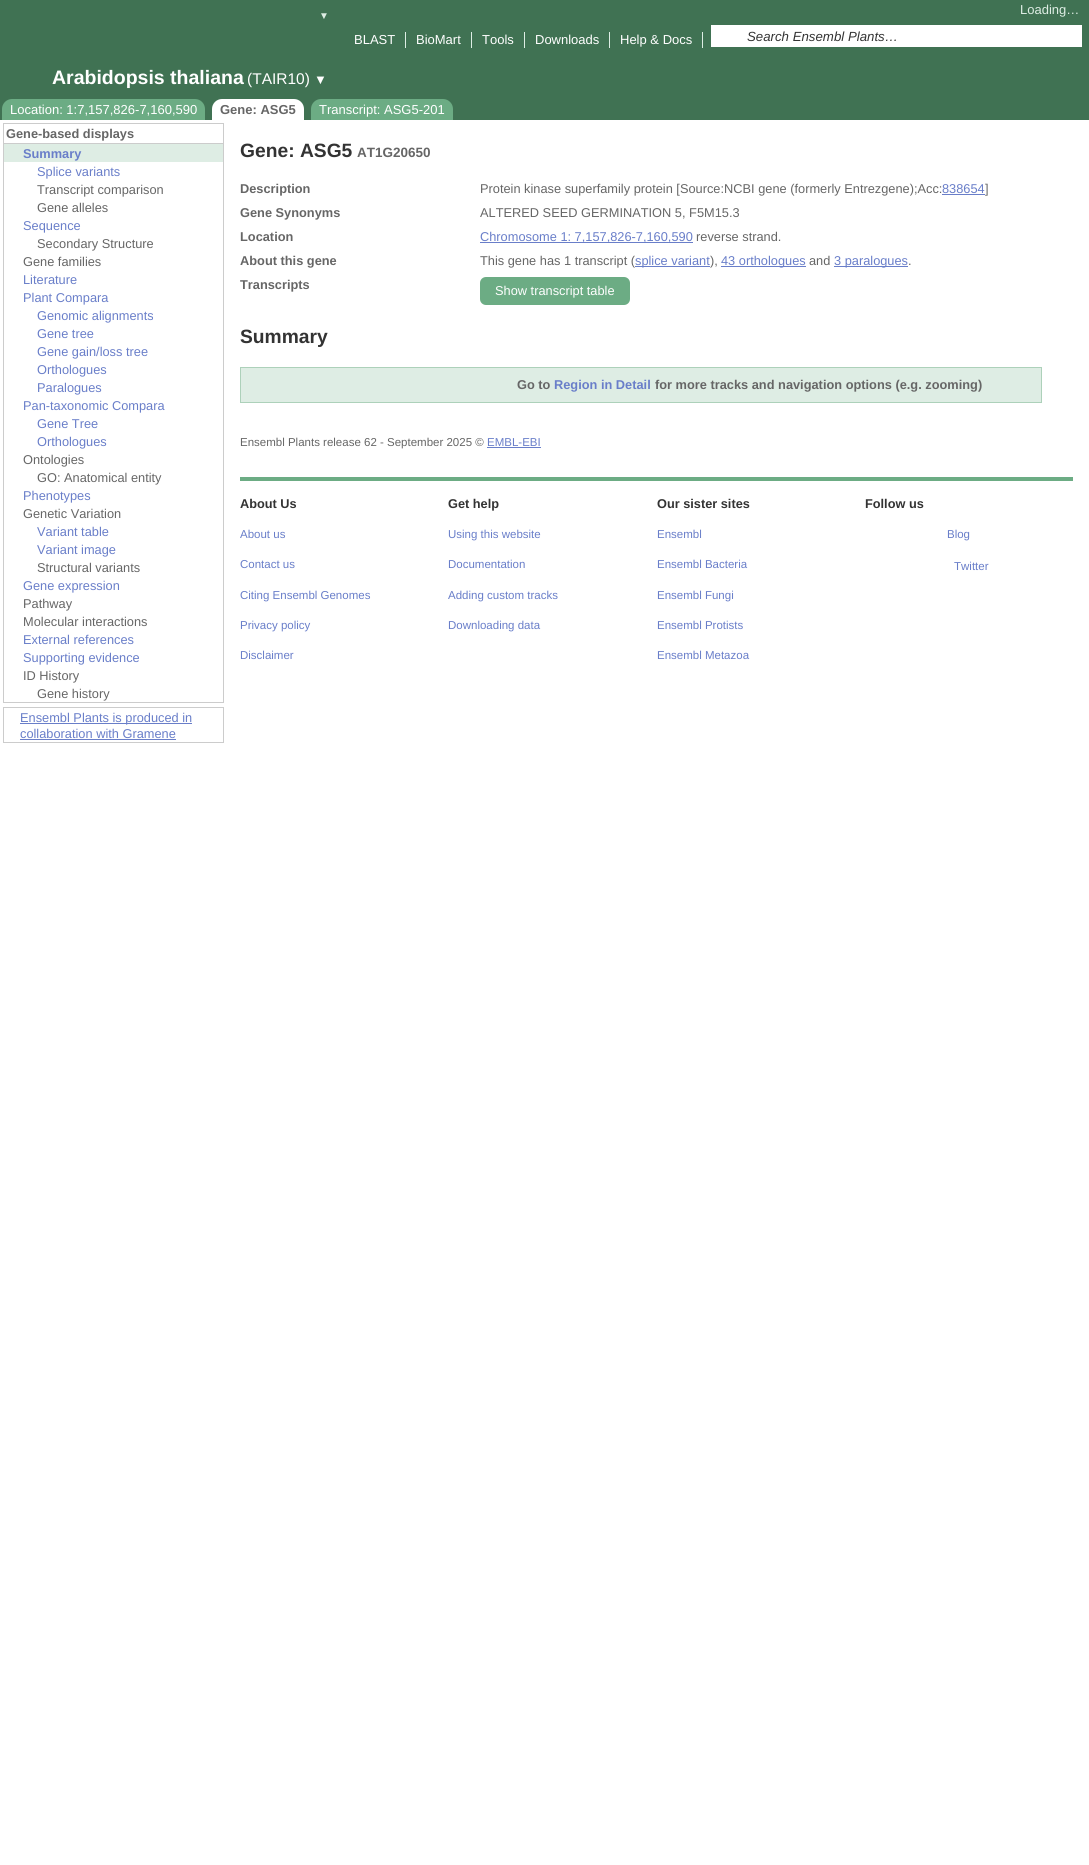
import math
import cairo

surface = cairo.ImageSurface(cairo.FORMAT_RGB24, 1089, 1865)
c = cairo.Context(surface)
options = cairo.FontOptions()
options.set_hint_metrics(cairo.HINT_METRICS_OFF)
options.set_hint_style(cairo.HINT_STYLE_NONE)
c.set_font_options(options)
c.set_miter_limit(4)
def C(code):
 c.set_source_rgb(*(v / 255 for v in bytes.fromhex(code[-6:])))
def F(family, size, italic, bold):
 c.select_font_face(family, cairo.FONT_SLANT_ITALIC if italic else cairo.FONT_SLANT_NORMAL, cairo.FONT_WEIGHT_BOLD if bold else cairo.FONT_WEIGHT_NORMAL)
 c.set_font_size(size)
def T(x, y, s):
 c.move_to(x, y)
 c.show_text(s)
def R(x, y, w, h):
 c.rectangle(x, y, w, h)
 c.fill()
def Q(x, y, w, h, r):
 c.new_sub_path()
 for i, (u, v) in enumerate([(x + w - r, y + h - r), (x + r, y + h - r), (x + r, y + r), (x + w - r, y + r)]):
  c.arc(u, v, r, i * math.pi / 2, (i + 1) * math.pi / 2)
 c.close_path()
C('ffffff')
c.paint()
C('407253')
R(0,0,1089,120)
F('Liberation Sans',10,0,0)
C('deede4')
T(319,19,'▼')
F('Liberation Sans',13,0,0)
T(1020,14,'Loading…')
R(405,32,1,16)
C('ffffff')
T(354,44,'BLAST')
C('deede4')
R(471,32,1,16)
C('ffffff')
T(416,44,'BioMart')
C('deede4')
R(524,32,1,16)
C('ffffff')
T(482,44,'Tools')
C('deede4')
R(609,32,1,16)
C('ffffff')
T(535,44,'Downloads')
C('deede4')
R(702,32,1,16)
C('ffffff')
T(620,44,'Help & Docs')
R(711,25,371,22)
F('Liberation Sans',13.25,1,0)
C('333333')
T(747,41,'Search Ensembl Plants…')
F('Liberation Sans',19.5,0,1)
C('ffffff')
T(52,84,'Arabidopsis thaliana')
F('Liberation Sans',15.5,0,0)
T(247,84,'(TAIR10)')
F('Liberation Sans',13,0,0)
T(314,84,'▼')
C('6cac84')
c.new_path()
c.move_to(12,99)
c.line_to(195,99)
c.curve_to(200.5,99,205,103.5,205,109)
c.line_to(205,120)
c.line_to(2,120)
c.line_to(2,109)
c.curve_to(2,103.5,6.5,99,12,99)
c.close_path()
c.fill()
C('ffffff')
T(10,114,'Location: 1:7,157,826-7,160,590')
c.new_path()
c.move_to(222,99)
c.line_to(294,99)
c.curve_to(299.5,99,304,103.5,304,109)
c.line_to(304,120)
c.line_to(212,120)
c.line_to(212,109)
c.curve_to(212,103.5,216.5,99,222,99)
c.close_path()
c.fill()
F('Liberation Sans',13,0,1)
C('666666')
T(220,114,'Gene: ASG5')
C('6cac84')
c.new_path()
c.move_to(321,99)
c.line_to(443,99)
c.curve_to(448.5,99,453,103.5,453,109)
c.line_to(453,120)
c.line_to(311,120)
c.line_to(311,109)
c.curve_to(311,103.5,315.5,99,321,99)
c.close_path()
c.fill()
F('Liberation Sans',13,0,0)
C('ffffff')
T(319,114,'Transcript: ASG5-201')
C('cccccc')
R(3,123,221,1)
R(223,123,1,20)
R(3,123,1,20)
F('Liberation Sans',12.8,0,1)
C('666666')
T(6,138,'Gene-based displays')
c.rectangle(3.5,143.5,220,559)
C('cccccc')
c.set_line_width(1)
c.stroke()
C('deede4')
R(4,144,219,18)
C('697ec9')
T(23,158,'Summary')
F('Liberation Sans',12.8,0,0)
T(37,176,'Splice variants')
C('666666')
T(37,194,'Transcript comparison')
T(37,212,'Gene alleles')
C('697ec9')
T(23,230,'Sequence')
C('666666')
T(37,248,'Secondary Structure')
T(23,266,'Gene families')
C('697ec9')
T(23,284,'Literature')
T(23,302,'Plant Compara')
T(37,320,'Genomic alignments')
T(37,338,'Gene tree')
T(37,356,'Gene gain/loss tree')
T(37,374,'Orthologues')
T(37,392,'Paralogues')
T(23,410,'Pan-taxonomic Compara')
T(37,428,'Gene Tree')
T(37,446,'Orthologues')
C('666666')
T(23,464,'Ontologies')
T(37,482,'GO: Anatomical entity')
C('697ec9')
T(23,500,'Phenotypes')
C('666666')
T(23,518,'Genetic Variation')
C('697ec9')
T(37,536,'Variant table')
T(37,554,'Variant image')
C('666666')
T(37,572,'Structural variants')
C('697ec9')
T(23,590,'Gene expression')
C('666666')
T(23,608,'Pathway')
T(23,626,'Molecular interactions')
C('697ec9')
T(23,644,'External references')
T(23,662,'Supporting evidence')
C('666666')
T(23,680,'ID History')
T(37,698,'Gene history')
c.rectangle(3.5,707.5,220,35)
C('cccccc')
c.stroke()
C('697ec9')
R(20,723,172,1)
T(20,722,'Ensembl Plants is produced in')
T(20,738,'collaboration with Gramene')
R(20,739,156,1)
F('Liberation Sans',19.25,0,1)
C('333333')
T(240,157,'Gene: ASG5')
F('Liberation Sans',13.5,0,1)
C('666666')
T(357,157,'AT1G20650')
F('Liberation Sans',12.8,0,1)
T(240,193,'Description')
F('Liberation Sans',12.8,0,0)
T(480,193,'Protein kinase superfamily protein [Source:NCBI gene (formerly Entrezgene);Acc:')
C('697ec9')
T(942,193,'838654')
R(942,194,43,1)
C('666666')
T(985,193,']')
F('Liberation Sans',12.8,0,1)
T(240,217,'Gene Synonyms')
F('Liberation Sans',12.8,0,0)
T(480,217,'ALTERED SEED GERMINATION 5, F5M15.3')
F('Liberation Sans',12.8,0,1)
T(240,241,'Location')
C('697ec9')
R(480,242,213,1)
F('Liberation Sans',12.8,0,0)
T(480,241,'Chromosome 1: 7,157,826-7,160,590')
C('666666')
T(696,241,'reverse strand.')
F('Liberation Sans',12.8,0,1)
T(240,265,'About this gene')
F('Liberation Sans',12.8,0,0)
T(480,265,'This gene has 1 transcript (')
C('697ec9')
R(635,266,75,1)
T(635,265,'splice variant')
C('666666')
T(710,265,'),')
C('697ec9')
R(721,266,85,1)
T(721,265,'43 orthologues')
C('666666')
T(809,265,'and')
C('697ec9')
R(834,266,74,1)
T(834,265,'3 paralogues')
C('666666')
T(908,265,'.')
F('Liberation Sans',12.8,0,1)
T(240,289,'Transcripts')
C('6cac84')
Q(480,277,150,28,6)
c.fill()
F('Liberation Sans',12.8,0,0)
C('ffffff')
T(495,295,'Show transcript table')
F('Liberation Sans',19.25,0,1)
C('333333')
T(240,343,'Summary')
C('deede4')
c.rectangle(240.5,367.5,801,35)
c.fill_preserve()
C('add1ba')
c.stroke()
F('Liberation Sans',12.8,0,1)
C('666666')
T(517,389,'Go to')
C('697ec9')
T(554,389,'Region in Detail')
C('666666')
T(655,389,'for more tracks and navigation options (e.g. zooming)')
F('Liberation Sans',11.5,0,0)
T(240,446,'Ensembl Plants release 62 - September 2025 ©')
C('697ec9')
T(487,446,'EMBL-EBI')
R(487,447,54,1)
C('6cac84')
R(240,477,833,4)
F('Liberation Sans',12.75,0,1)
C('333333')
T(240,508,'About Us')
F('Liberation Sans',11.5,0,0)
C('697ec9')
T(240,538,'About us')
T(240,568,'Contact us')
T(240,599,'Citing Ensembl Genomes')
T(240,629,'Privacy policy')
T(240,659,'Disclaimer')
F('Liberation Sans',12.75,0,1)
C('333333')
T(448,508,'Get help')
F('Liberation Sans',11.5,0,0)
C('697ec9')
T(448,538,'Using this website')
T(448,568,'Documentation')
T(448,599,'Adding custom tracks')
T(448,629,'Downloading data')
F('Liberation Sans',12.75,0,1)
C('333333')
T(657,508,'Our sister sites')
F('Liberation Sans',11.5,0,0)
C('697ec9')
T(657,538,'Ensembl')
T(657,568,'Ensembl Bacteria')
T(657,599,'Ensembl Fungi')
T(657,629,'Ensembl Protists')
T(657,659,'Ensembl Metazoa')
F('Liberation Sans',12.75,0,1)
C('333333')
T(865,508,'Follow us')
F('Liberation Sans',11.5,0,0)
C('697ec9')
T(947,538,'Blog')
T(954,570,'Twitter')
surface.write_to_png('o.png')
